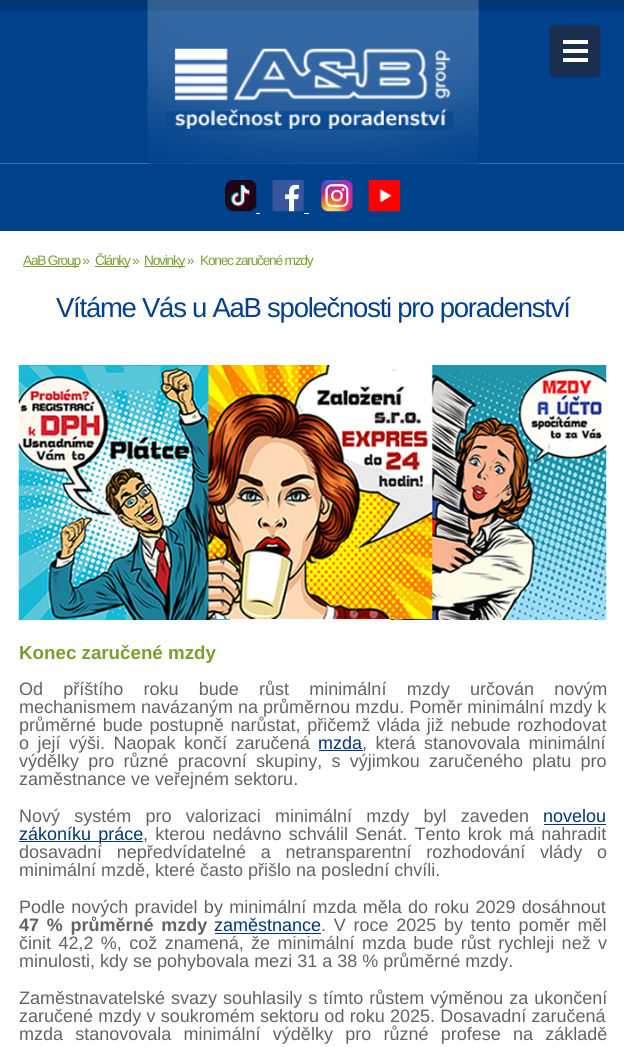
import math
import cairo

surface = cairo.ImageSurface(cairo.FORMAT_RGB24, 624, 1047)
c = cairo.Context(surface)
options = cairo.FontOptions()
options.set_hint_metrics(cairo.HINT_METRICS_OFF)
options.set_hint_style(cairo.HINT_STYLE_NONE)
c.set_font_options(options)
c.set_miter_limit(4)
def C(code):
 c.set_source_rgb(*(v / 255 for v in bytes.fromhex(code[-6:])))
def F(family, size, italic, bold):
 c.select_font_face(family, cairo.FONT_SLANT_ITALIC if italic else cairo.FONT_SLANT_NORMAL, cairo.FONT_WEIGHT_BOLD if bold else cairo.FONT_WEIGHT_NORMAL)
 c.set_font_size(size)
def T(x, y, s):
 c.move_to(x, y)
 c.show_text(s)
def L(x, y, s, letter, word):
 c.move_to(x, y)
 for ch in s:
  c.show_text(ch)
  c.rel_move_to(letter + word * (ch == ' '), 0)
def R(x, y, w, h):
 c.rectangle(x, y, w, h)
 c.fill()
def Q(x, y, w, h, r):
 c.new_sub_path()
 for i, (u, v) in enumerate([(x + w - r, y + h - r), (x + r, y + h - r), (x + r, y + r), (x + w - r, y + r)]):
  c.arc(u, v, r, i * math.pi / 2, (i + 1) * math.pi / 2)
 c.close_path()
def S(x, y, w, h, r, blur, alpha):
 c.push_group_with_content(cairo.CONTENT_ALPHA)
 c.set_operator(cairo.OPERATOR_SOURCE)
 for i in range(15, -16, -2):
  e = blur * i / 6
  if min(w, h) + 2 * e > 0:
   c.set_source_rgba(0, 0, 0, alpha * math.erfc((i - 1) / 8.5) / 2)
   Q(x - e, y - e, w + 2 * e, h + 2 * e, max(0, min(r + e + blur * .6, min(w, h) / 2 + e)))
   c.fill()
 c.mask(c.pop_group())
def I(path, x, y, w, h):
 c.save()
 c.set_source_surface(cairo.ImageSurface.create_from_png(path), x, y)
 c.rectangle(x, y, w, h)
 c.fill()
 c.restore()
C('ffffff')
c.paint()
I('1.png',0,0,624,164)
I('2.png',147,0,332,164)
C('000000')
S(550,26,50,52,4,.5,.15)
C('192f4d')
Q(550,25,50,51,4)
c.fill()
C('ffffff')
R(563,40,25,4)
R(563,49,25,4)
R(563,58,25,4)
C('00418b')
R(0,164,624,67)
I('3.png',225,180,32,32)
I('4.png',272,180,32,32)
I('5.png',321,180,32,32)
I('6.png',368,180,32,32)
C('ffffff')
R(256,213,4,1)
R(304,213,5,1)
C('78a031')
R(23,266,56,1)
F('Liberation Sans',13.75,0,0)
L(23,265,'AaB Group »',-1.25,0)
R(95,266,34,1)
L(95,265,'Články »',-1.25,0)
R(145,266,40,1)
L(144,265,'Novinky »',-1.25,0)
L(200,265,'Konec zaručené mzdy',-1.25,0)
F('Liberation Sans',27.5,0,0)
C('00418c')
L(56,317,'Vítáme Vás u AaB společnosti pro poradenství',-1.25,0)
I('7.png',18,365,589,255)
F('Liberation Sans',18.75,0,1)
C('78a031')
T(19,659,'Konec zaručené mzdy')
F('Liberation Sans',18,0,0)
C('646263')
L(19,695,'Od příštího roku bude růst minimální mzdy určován novým',0,15.25)
T(19,713,'mechanismem navázaným na průměrnou mzdu. Poměr minimální mzdy k')
L(19,731,'průměrné bude postupně narůstat, přičemž vláda již nebude rozhodovat',0,1.75)
L(19,749,'o její výši. Naopak končí zaručená',0,3.5)
C('003674')
T(318,749,'mzda')
R(319,750,44,1)
C('646263')
L(362,749,', která stanovovala minimální',0,3.5)
L(19,767,'výdělky pro různé pracovní skupiny, s výjimkou zaručeného platu pro',0,4.25)
T(19,785,'zaměstnance ve veřejném sektoru.')
L(19,822,'Nový systém pro valorizaci minimální mzdy byl zaveden',0,9.25)
C('003674')
T(543,822,'novelou')
R(544,824,62,1)
R(19,841,124,1)
L(19,840,'zákoníku práce',0,2.25)
C('646263')
L(143,840,', kterou nedávno schválil Senát. Tento krok má nahradit',0,2.25)
L(19,858,'dosavadní nepředvídatelné a netransparentní rozhodování vlády o',0,9.75)
T(19,876,'minimální mzdě, které často přišlo na poslední chvíli.')
L(19,913,'Podle nových pravidel by minimální mzda měla do roku 2029 dosáhnout',0,1.25)
F('Liberation Sans',18,0,1)
L(19,931,'47 % průměrné mzdy',0,2.75)
F('Liberation Sans',18,0,0)
C('003674')
T(214,931,'zaměstnance')
R(215,933,106,1)
C('646263')
L(321,931,'. V roce 2025 by tento poměr měl',0,2.75)
L(19,949,'činit 42,2 %, což znamená, že minimální mzda bude růst rychleji než v',0,2.4)
T(19,967,'minulosti, kdy se pohybovala mezi 31 a 38 % průměrné mzdy.')
L(19,1004,'Zaměstnavatelské svazy souhlasily s tímto růstem výměnou za ukončení',0,1)
L(19,1022,'zaručené mzdy v soukromém sektoru od roku 2025. Dosavadní zaručená',0,.25)
L(19,1040,'mzda stanovovala minimální výdělky pro různé profese na základě',0,7.25)
surface.write_to_png('o.png')
